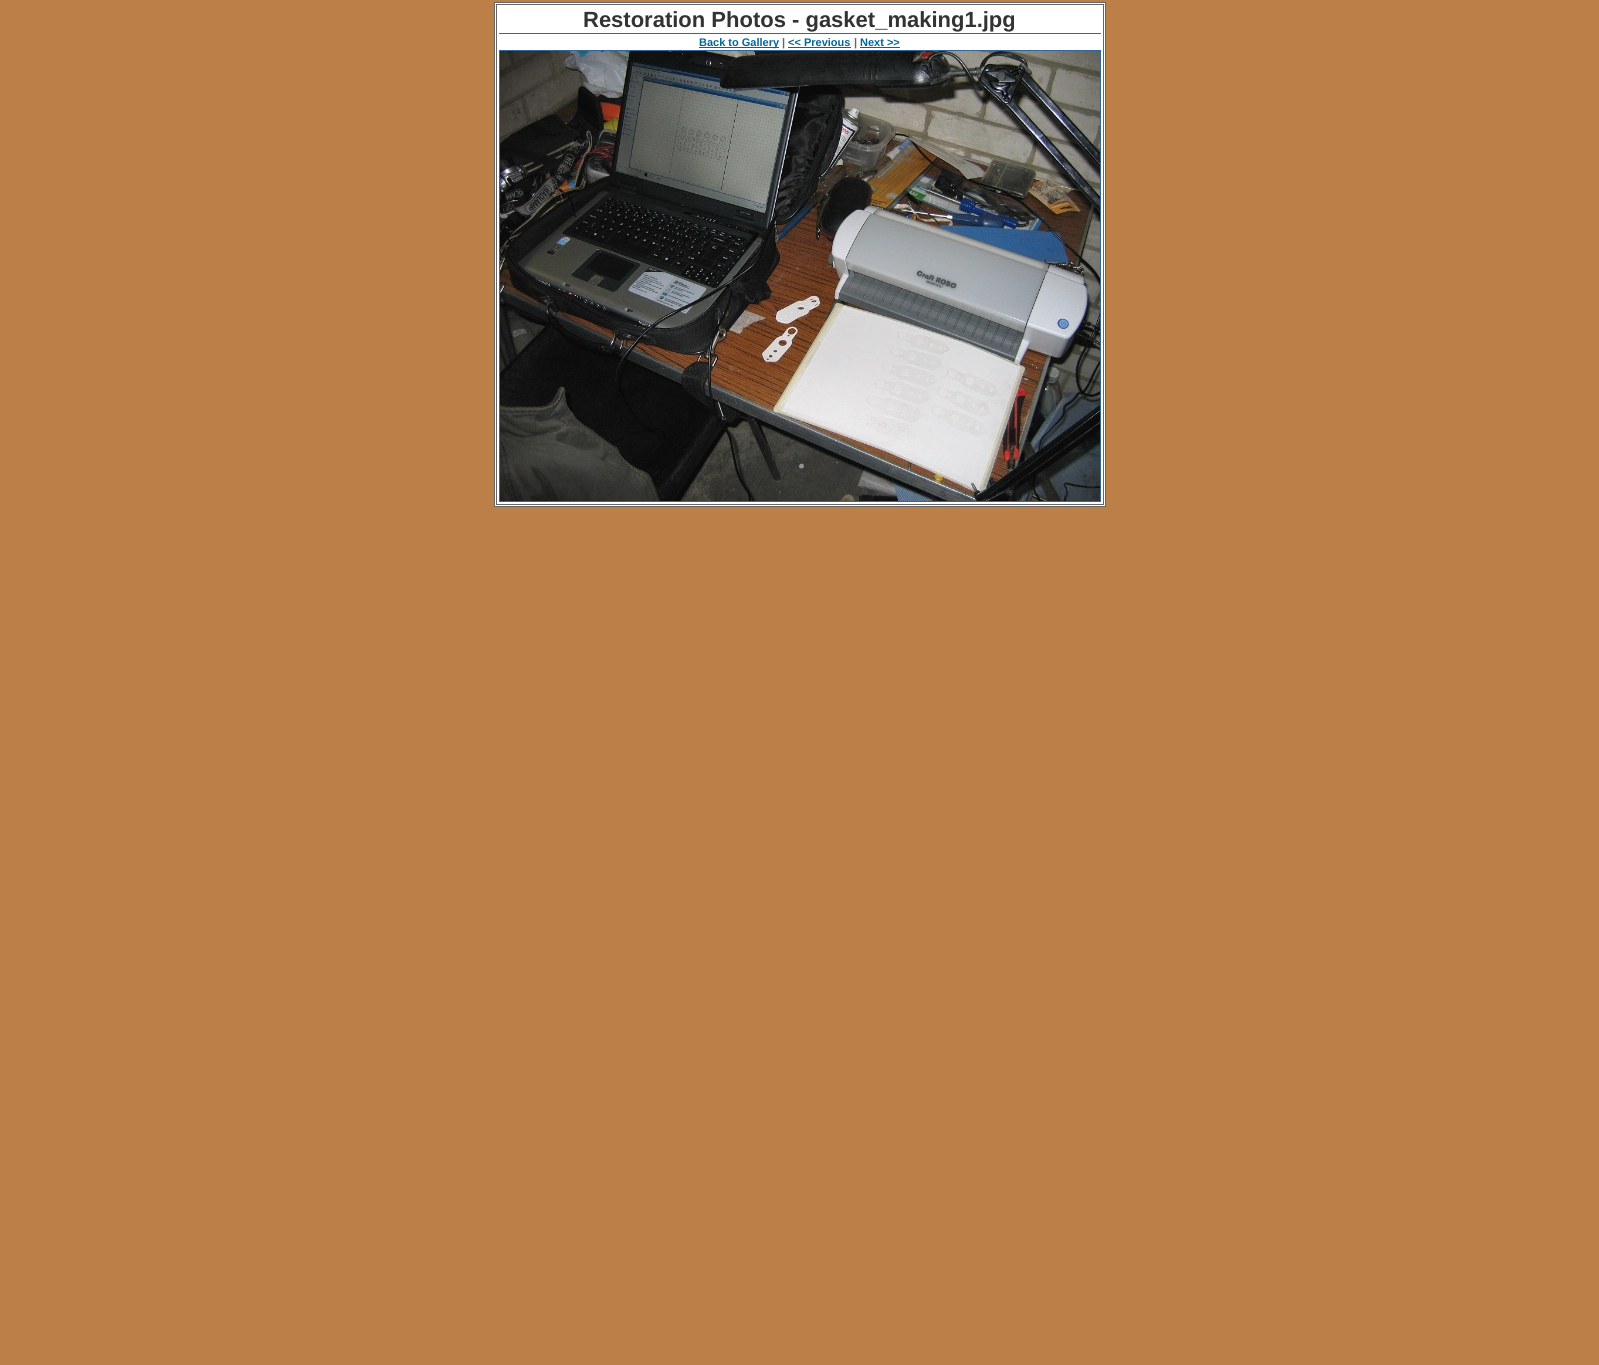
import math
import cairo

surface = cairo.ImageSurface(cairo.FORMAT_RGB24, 1599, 1365)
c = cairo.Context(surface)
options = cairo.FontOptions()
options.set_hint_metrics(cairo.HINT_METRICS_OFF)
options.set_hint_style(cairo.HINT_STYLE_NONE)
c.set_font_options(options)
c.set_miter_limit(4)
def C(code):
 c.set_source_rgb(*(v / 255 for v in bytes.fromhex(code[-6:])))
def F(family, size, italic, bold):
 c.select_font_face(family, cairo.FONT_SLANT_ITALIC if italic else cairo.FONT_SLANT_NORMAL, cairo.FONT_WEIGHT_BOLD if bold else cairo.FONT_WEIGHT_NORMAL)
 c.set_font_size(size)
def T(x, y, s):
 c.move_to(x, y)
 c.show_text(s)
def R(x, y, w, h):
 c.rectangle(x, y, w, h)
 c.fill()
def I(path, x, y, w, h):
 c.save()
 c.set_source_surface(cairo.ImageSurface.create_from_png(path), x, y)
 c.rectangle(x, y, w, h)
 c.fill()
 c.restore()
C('bc7f48')
c.paint()
C('ffffff')
c.rectangle(494.5,2.5,611,504)
c.fill_preserve()
C('666666')
c.set_line_width(1)
c.stroke()
c.rectangle(496.5,4.5,607,500)
c.stroke()
C('336699')
R(499,33,602,1)
F('Liberation Sans',22,0,1)
C('333333')
T(583,27,'Restoration Photos - gasket_making1.jpg')
C('006699')
R(699,47,80,1)
F('Liberation Sans',11,0,1)
T(699,46,'Back to Gallery')
C('666666')
T(782,46,'|')
C('006699')
T(788,46,'<< Previous')
R(788,47,63,1)
C('666666')
T(854,46,'|')
C('006699')
T(860,46,'Next >>')
R(860,47,40,1)
c.rectangle(499.5,50.5,601,451)
C('336699')
c.stroke()
I('1.png',500,51,600,450)
surface.write_to_png('o.png')
